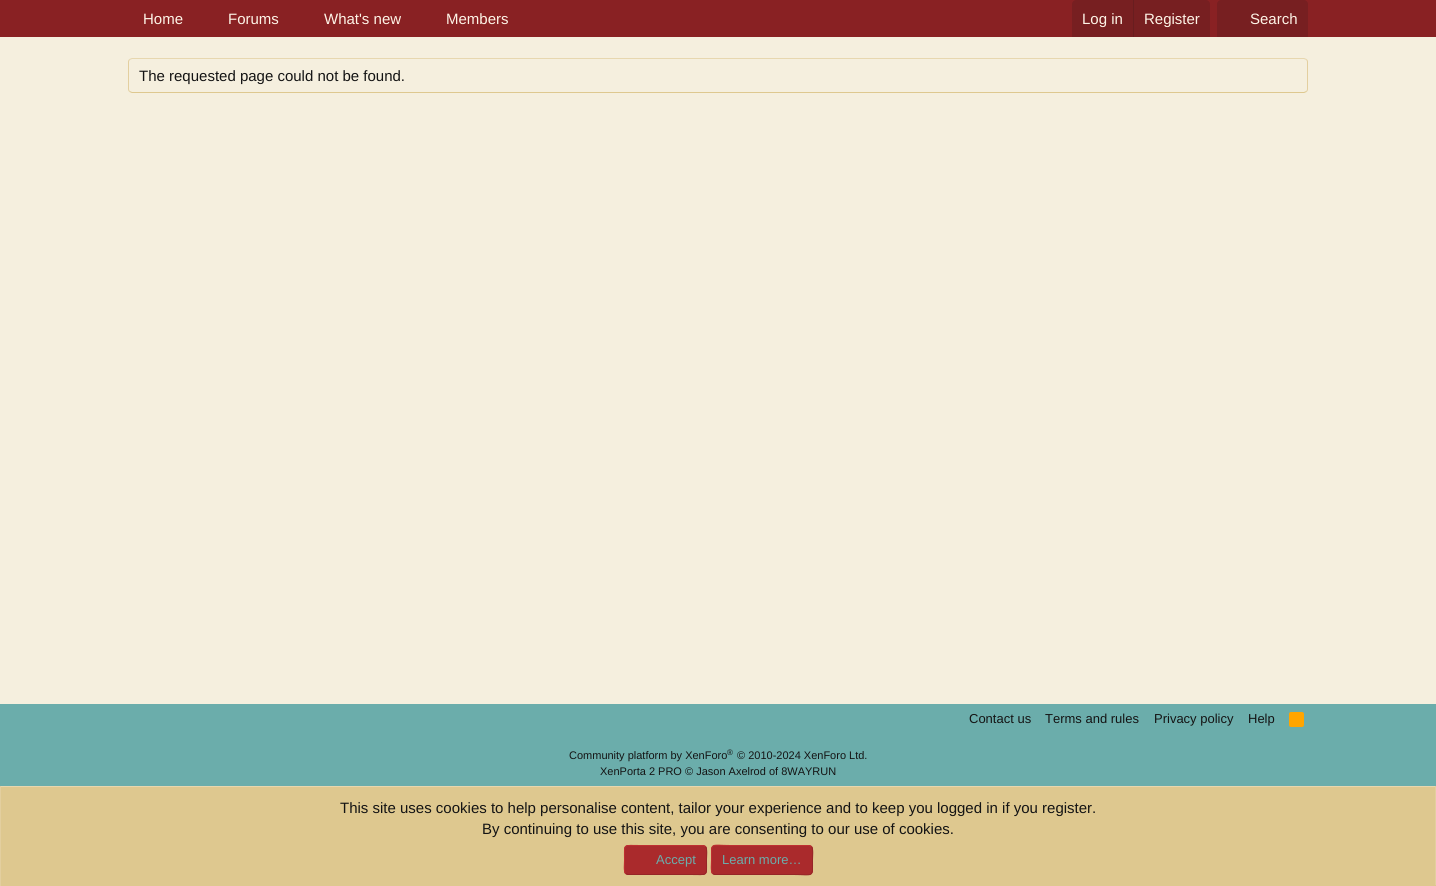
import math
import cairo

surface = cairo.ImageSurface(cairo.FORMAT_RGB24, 1436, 886)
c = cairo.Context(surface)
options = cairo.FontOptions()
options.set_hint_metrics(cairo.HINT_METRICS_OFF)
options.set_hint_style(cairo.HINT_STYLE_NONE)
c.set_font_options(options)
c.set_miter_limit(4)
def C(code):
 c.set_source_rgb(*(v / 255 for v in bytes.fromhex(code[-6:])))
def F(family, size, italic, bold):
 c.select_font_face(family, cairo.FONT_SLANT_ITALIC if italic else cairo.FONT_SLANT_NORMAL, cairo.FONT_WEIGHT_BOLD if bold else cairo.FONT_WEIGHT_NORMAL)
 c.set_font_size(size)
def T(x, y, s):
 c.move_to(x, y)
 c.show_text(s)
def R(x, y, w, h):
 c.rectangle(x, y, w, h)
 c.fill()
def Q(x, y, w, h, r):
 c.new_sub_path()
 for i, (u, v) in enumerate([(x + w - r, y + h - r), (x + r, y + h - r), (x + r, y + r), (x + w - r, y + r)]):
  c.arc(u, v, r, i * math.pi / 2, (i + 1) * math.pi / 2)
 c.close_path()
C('6badab')
c.paint()
C('892123')
R(0,0,1436,37)
F('Liberation Sans',15,0,0)
C('fef4e7')
T(143,24,'Home')
T(228,24,'Forums')
T(324,24,'What\'s new')
T(446,24,'Members')
C('771f21')
c.new_path()
c.move_to(1076,0)
c.line_to(1206,0)
c.curve_to(1208,0,1210,2,1210,4)
c.line_to(1210,37)
c.line_to(1072,37)
c.line_to(1072,4)
c.curve_to(1072,2,1074,0,1076,0)
c.close_path()
c.fill()
C('fef4e7')
T(1082,24,'Log in')
C('681d1f')
R(1133,0,1,37)
C('fef4e7')
T(1144,24,'Register')
C('771f21')
c.new_path()
c.move_to(1221,0)
c.line_to(1304,0)
c.curve_to(1306,0,1308,2,1308,4)
c.line_to(1308,37)
c.line_to(1217,37)
c.line_to(1217,4)
c.curve_to(1217,2,1219,0,1221,0)
c.close_path()
c.fill()
C('fef4e7')
T(1250,24,'Search')
C('f5efde')
R(0,37,1436,667)
c.new_path()
c.move_to(129.5,59.5)
c.line_to(132,58.5)
c.line_to(1304,58.5)
c.line_to(1306.5,59.5)
C('e7d7af')
c.set_line_width(1)
c.stroke()
c.new_path()
c.move_to(1306.5,59.5)
c.curve_to(1307,60,1307.5,61,1307.5,62)
c.line_to(1307.5,89)
c.curve_to(1307.5,90,1307,91,1306.5,91.5)
C('e3cf9f')
c.stroke()
c.new_path()
c.move_to(1306.5,91.5)
c.line_to(1304,92.5)
c.line_to(132,92.5)
c.line_to(129.5,91.5)
C('dec88f')
c.stroke()
c.new_path()
c.move_to(129.5,91.5)
c.curve_to(129,91,128.5,90,128.5,89)
c.line_to(128.5,62)
c.curve_to(128.5,61,129,60,129.5,59.5)
C('e3cf9f')
c.stroke()
C('141414')
T(139,81,'The requested page could not be found.')
F('Liberation Sans',13,0,0)
T(969,723,'Contact us')
T(1045,723,'Terms and rules')
T(1154,723,'Privacy policy')
T(1248,723,'Help')
C('ffa500')
Q(1289,712,15,15,2)
c.fill()
F('Liberation Sans',11,0,0)
C('141414')
T(569,759,'Community platform by XenForo')
F('Liberation Sans',8,0,0)
T(727,755,'®')
F('Liberation Sans',11,0,0)
T(737,759,'© 2010-2024 XenForo Ltd.')
T(600,775,'XenPorta 2 PRO © Jason Axelrod of 8WAYRUN')
C('dec88f')
R(1,787,1434,98)
C('e7d7af')
R(0,786,1436,1)
C('e3cf9f')
R(1435,786,1,100)
C('dec88f')
R(0,885,1436,1)
C('e3cf9f')
R(0,786,1,100)
F('Liberation Sans',15,0,0)
C('141414')
T(340,813,'This site uses cookies to help personalise content, tailor your experience and to keep you logged in if you register.')
T(482,834,'By continuing to use this site, you are consenting to our use of cookies.')
C('aa2a2c')
Q(624,845,83,30,4)
c.fill()
c.new_path()
c.move_to(705.5,846.5)
c.curve_to(707.5,848.5,706.5,857,706.5,860)
c.curve_to(706.5,877,708.5,874.5,690.5,874.5)
c.line_to(628,874.5)
c.line_to(625.5,873.5)
C('962527')
c.stroke()
c.new_path()
c.move_to(625.5,873.5)
c.curve_to(623.5,871.5,624.5,863,624.5,860)
c.curve_to(624.5,843,622.5,845.5,640.5,845.5)
c.line_to(703,845.5)
c.line_to(705.5,846.5)
C('bf2f31')
c.stroke()
F('Liberation Sans',13,0,0)
C('6badab')
T(656,864,'Accept')
C('aa2a2c')
Q(711,845,102,30,4)
c.fill()
c.new_path()
c.move_to(811.5,846.5)
c.curve_to(813.5,848.5,812.5,857,812.5,860)
c.curve_to(812.5,878.5,814,874.5,793.5,874.5)
c.line_to(715,874.5)
c.line_to(712.5,873.5)
C('962527')
c.stroke()
c.new_path()
c.move_to(712.5,873.5)
c.curve_to(710.5,871.5,711.5,863,711.5,860)
c.curve_to(711.5,841.5,710,845.5,730.5,845.5)
c.line_to(809,845.5)
c.line_to(811.5,846.5)
C('bf2f31')
c.stroke()
C('6badab')
T(722,864,'Learn more…')
surface.write_to_png('o.png')
